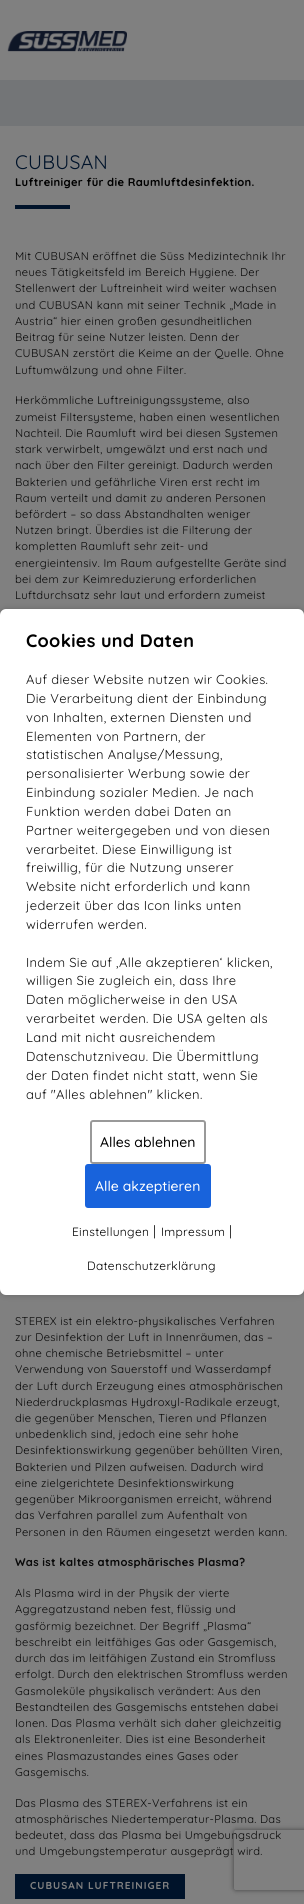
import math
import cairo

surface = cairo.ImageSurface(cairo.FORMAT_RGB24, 304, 1904)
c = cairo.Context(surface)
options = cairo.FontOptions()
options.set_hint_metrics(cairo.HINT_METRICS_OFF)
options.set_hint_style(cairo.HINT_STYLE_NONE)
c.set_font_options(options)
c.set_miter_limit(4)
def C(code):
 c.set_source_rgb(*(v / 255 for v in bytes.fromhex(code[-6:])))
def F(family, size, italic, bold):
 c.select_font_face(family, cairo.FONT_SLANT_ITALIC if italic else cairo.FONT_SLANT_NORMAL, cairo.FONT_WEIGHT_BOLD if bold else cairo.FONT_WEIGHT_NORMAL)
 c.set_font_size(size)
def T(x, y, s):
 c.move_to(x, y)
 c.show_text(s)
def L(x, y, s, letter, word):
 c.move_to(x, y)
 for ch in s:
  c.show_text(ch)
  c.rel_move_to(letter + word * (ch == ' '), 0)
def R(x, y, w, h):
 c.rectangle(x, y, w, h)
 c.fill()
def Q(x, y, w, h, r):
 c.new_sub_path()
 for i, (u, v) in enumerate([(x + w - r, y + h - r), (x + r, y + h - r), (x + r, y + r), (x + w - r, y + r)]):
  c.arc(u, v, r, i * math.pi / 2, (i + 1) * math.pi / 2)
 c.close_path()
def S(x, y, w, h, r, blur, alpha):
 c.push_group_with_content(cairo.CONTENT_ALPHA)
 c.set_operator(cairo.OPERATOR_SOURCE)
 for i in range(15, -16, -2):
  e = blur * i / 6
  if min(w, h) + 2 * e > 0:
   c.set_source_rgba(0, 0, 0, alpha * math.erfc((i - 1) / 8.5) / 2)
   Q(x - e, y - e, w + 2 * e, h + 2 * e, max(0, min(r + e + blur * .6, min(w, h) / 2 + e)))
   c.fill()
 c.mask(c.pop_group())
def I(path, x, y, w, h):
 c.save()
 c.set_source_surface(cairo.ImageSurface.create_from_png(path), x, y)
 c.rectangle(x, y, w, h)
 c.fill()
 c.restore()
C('808080')
c.paint()
I('1.png',7,31,120,21)
C('737577')
R(0,80,304,46)
F('Quicksand Light',19.5,0,0)
C('00132a')
L(15,169,'CUBUSAN',.3,0)
F('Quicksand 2 Light',11.2,0,0)
C('000000')
L(15,186,'Luftreiniger für die Raumluftdesinfektion.',.3,0)
C('00132a')
R(15,205,55,4)
F('Quicksand Light',11.2,0,0)
C('090909')
L(15,260,'Mit CUBUSAN eröffnet die Süss Medizintechnik Ihr',.3,0)
L(15,276,'neues Tätigkeitsfeld im Bereich Hygiene. Der',.3,0)
L(15,292,'Stellenwert der Luftreinheit wird weiter wachsen',.3,0)
L(15,309,'und CUBUSAN kann mit seiner Technik „Made in',.3,0)
L(15,325,'Austria“ hier einen großen gesundheitlichen',.3,0)
L(15,341,'Beitrag für seine Nutzer leisten. Denn der',.3,0)
L(15,357,'CUBUSAN zerstört die Keime an der Quelle. Ohne',.3,0)
L(15,374,'Luftumwälzung und ohne Filter.',.3,0)
L(15,404,'Herkömmliche Luftreinigungssysteme, also',.3,0)
L(15,421,'zumeist Filtersysteme, haben einen wesentlichen',.3,0)
L(15,437,'Nachteil. Die Raumluft wird bei diesen Systemen',.3,0)
L(15,453,'stark verwirbelt, umgewälzt und erst nach und',.3,0)
L(15,469,'nach über den Filter gereinigt. Dadurch werden',.3,0)
L(15,486,'Bakterien und gefährliche Viren erst recht im',.3,0)
L(15,502,'Raum verteilt und damit zu anderen Personen',.3,0)
L(15,518,'befördert – so dass Abstandhalten weniger',.3,0)
L(15,534,'Nutzen bringt. Überdies ist die Filterung der',.3,0)
L(15,550,'kompletten Raumluft sehr zeit- und',.3,0)
L(15,567,'energieintensiv. Im Raum aufgestellte Geräte sind',.3,0)
L(15,583,'bei dem zur Keimreduzierung erforderlichen',.3,0)
L(15,599,'Luftdurchsatz sehr laut und erfordern zumeist',.3,0)
L(15,1325,'STEREX ist ein elektro-physikalisches Verfahren',.3,0)
L(15,1341,'zur Desinfektion der Luft in Innenräumen, das –',.3,0)
L(15,1357,'ohne chemische Betriebsmittel – unter',.3,0)
L(15,1373,'Verwendung von Sauerstoff und Wasserdampf',.3,0)
L(15,1390,'der Luft durch Erzeugung eines atmosphärischen',.3,0)
L(15,1406,'Niederdruckplasmas Hydroxyl-Radikale erzeugt,',.3,0)
L(15,1422,'die gegenüber Menschen, Tieren und Pflanzen',.3,0)
L(15,1438,'unbedenklich sind, jedoch eine sehr hohe',.3,0)
L(15,1454,'Desinfektionswirkung gegenüber behüllten Viren,',.3,0)
L(15,1471,'Bakterien und Pilzen aufweisen. Dadurch wird',.3,0)
L(15,1487,'eine zielgerichtete Desinfektionswirkung',.3,0)
L(15,1503,'gegenüber Mikroorganismen erreicht, während',.3,0)
L(15,1519,'das Verfahren parallel zum Aufenthalt von',.3,0)
L(15,1536,'Personen in den Räumen eingesetzt werden kann.',.3,0)
F('Quicksand 2 Light',11.2,0,0)
L(15,1566,'Was ist kaltes atmosphärisches Plasma?',.3,0)
F('Quicksand Light',11.2,0,0)
L(15,1597,'Als Plasma wird in der Physik der vierte',.3,0)
L(15,1613,'Aggregatzustand neben fest, flüssig und',.3,0)
L(15,1630,'gasförmig bezeichnet. Der Begriff „Plasma“',.3,0)
L(15,1646,'beschreibt ein leitfähiges Gas oder Gasgemisch,',.3,0)
L(15,1662,'durch das im leitfähigen Zustand ein Stromfluss',.3,0)
L(15,1678,'erfolgt. Durch den elektrischen Stromfluss werden',.3,0)
L(15,1695,'Gasmoleküle physikalisch verändert: Aus den',.3,0)
L(15,1711,'Bestandteilen des Gasgemischs entstehen dabei',.3,0)
L(15,1727,'Ionen. Das Plasma verhält sich daher gleichzeitig',.3,0)
L(15,1743,'als Elektronenleiter. Dies ist eine Besonderheit',.3,0)
L(15,1760,'eines Plasmazustandes eines Gases oder',.3,0)
L(15,1776,'Gasgemischs.',.3,0)
L(15,1807,'Das Plasma des STEREX-Verfahrens ist ein',.3,0)
L(15,1823,'atmosphärisches Niedertemperatur-Plasma. Das',.3,0)
L(15,1839,'bedeutet, dass das Plasma bei Umgebungsdruck',.3,0)
L(15,1855,'und Umgebungstemperatur ausgeprägt wird.',.3,0)
C('00132a')
R(15,1874,170,25)
F('Quicksand 2 Light',10.1,0,0)
C('808080')
L(30,1889,'CUBUSAN LUFTREINIGER',1,0)
C('000000')
S(0,609,304,686,6,3,.2)
C('ffffff')
Q(0,609,304,686,6)
c.fill()
F('Quicksand 2 Light',18,0,0)
C('000000')
L(26,647,'Cookies und Daten',.3,0)
F('Quicksand Light',13,0,0)
C('111111')
L(26,684,'Auf dieser Website nutzen wir Cookies.',.3,0)
L(26,703,'Die Verarbeitung dient der Einbindung',.3,0)
L(26,722,'von Inhalten, externen Diensten und',.3,0)
L(26,741,'Elementen von Partnern, der',.3,0)
L(26,759,'statistischen Analyse/Messung,',.3,0)
L(26,778,'personalisierter Werbung sowie der',.3,0)
L(26,797,'Einbindung sozialer Medien. Je nach',.3,0)
L(26,816,'Funktion werden dabei Daten an',.3,0)
L(26,835,'Partner weitergegeben und von diesen',.3,0)
L(26,854,'verarbeitet. Diese Einwilligung ist',.3,0)
L(26,872,'freiwillig, für die Nutzung unserer',.3,0)
L(26,891,'Website nicht erforderlich und kann',.3,0)
L(26,910,'jederzeit über das Icon links unten',.3,0)
L(26,929,'widerrufen werden.',.3,0)
L(26,967,'Indem Sie auf ‚Alle akzeptieren‘ klicken,',.3,0)
L(26,985,'willigen Sie zugleich ein, dass Ihre',.3,0)
L(26,1004,'Daten möglicherweise in den USA',.3,0)
L(26,1023,'verarbeitet werden. Die USA gelten als',.3,0)
L(26,1042,'Land mit nicht ausreichendem',.3,0)
L(26,1061,'Datenschutzniveau. Die Übermittlung',.3,0)
L(26,1080,'der Daten findet nicht statt, wenn Sie',.3,0)
L(26,1099,'auf "Alles ablehnen" klicken.',.3,0)
Q(91,1121,114,42,2)
C('999999')
c.stroke()
F('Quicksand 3 Light',14,0,0)
C('000000')
T(100,1147,'Alles ablehnen')
C('1863dc')
Q(86,1165,124,42,2)
c.fill_preserve()
c.stroke()
C('ffffff')
T(95,1191,'Alle akzeptieren')
F('Quicksand Light',12,0,0)
C('000000')
L(72,1236,'Einstellungen',.3,0)
F('Quicksand Light',14,0,0)
C('111111')
L(153,1236,'|',.3,0)
F('Quicksand Light',12,0,0)
C('000000')
L(161,1236,'Impressum',.3,0)
F('Quicksand Light',14,0,0)
C('111111')
L(229,1236,'|',.3,0)
F('Quicksand Light',12,0,0)
C('000000')
L(87,1270,'Datenschutzerklärung',.3,0)
c.save()
c.set_fill_rule(cairo.FILL_RULE_EVEN_ODD)
c.new_path()
c.move_to(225,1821)
c.line_to(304,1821)
c.line_to(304,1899)
c.line_to(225,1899)
c.close_path()
c.move_to(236,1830)
c.line_to(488,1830)
c.curve_to(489,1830,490,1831,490,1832)
c.line_to(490,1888)
c.curve_to(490,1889,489,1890,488,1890)
c.line_to(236,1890)
c.curve_to(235,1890,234,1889,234,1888)
c.line_to(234,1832)
c.curve_to(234,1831,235,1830,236,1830)
c.close_path()
c.clip()
C('404040')
S(234,1830,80,60,2,2.5,1)
c.restore()
surface.write_to_png('o.png')
